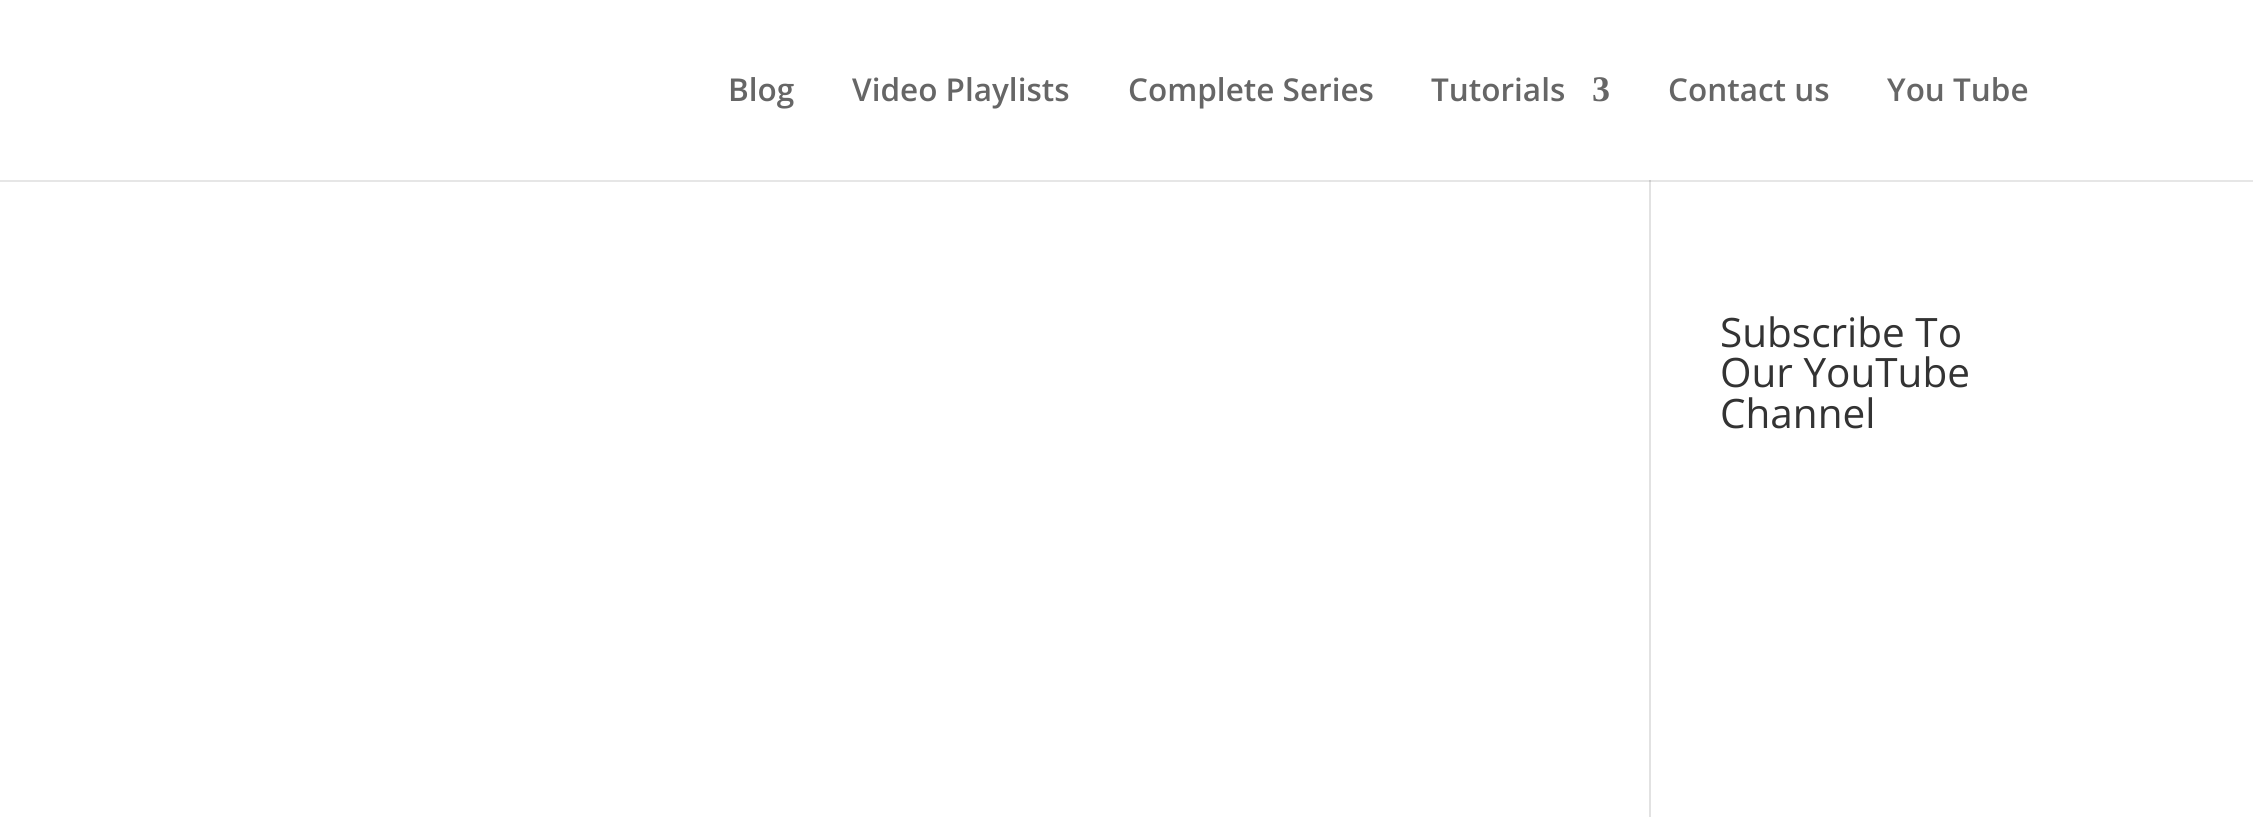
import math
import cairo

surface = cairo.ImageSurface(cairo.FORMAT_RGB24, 2253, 817)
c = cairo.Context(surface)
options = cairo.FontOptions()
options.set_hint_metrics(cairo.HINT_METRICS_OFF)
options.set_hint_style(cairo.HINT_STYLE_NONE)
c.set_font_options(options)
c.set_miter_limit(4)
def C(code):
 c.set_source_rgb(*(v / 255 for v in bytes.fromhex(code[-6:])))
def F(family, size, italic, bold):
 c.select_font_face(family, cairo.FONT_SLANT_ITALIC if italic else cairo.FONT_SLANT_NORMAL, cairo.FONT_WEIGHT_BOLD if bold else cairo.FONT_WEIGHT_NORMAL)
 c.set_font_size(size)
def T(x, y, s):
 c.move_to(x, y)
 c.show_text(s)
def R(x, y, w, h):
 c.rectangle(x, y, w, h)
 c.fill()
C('ffffff')
c.paint()
C('e2e2e2')
R(1649,180,2,637)
c.set_source_rgba(0,0,0,0.1)
c.new_path()
c.move_to(0,180)
c.line_to(0,182)
c.line_to(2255,182)
c.line_to(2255,2)
c.line_to(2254,2)
c.line_to(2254,180)
c.close_path()
c.fill()
F('Open Sans SemiBold',31.5,0,0)
C('666666')
T(728,101,'Blog')
T(852,101,'Video Playlists')
T(1128,101,'Complete Series')
T(1431,101,'Tutorials')
F('Liberation Serif',36,0,1)
T(1592,101,'3')
F('Open Sans SemiBold',31.5,0,0)
T(1668,101,'Contact us')
T(1887,101,'You Tube')
F('Open Sans',40.5,0,0)
C('333333')
T(1720,347,'Subscribe To')
T(1720,387,'Our YouTube')
T(1720,428,'Channel')
surface.write_to_png('o.png')
